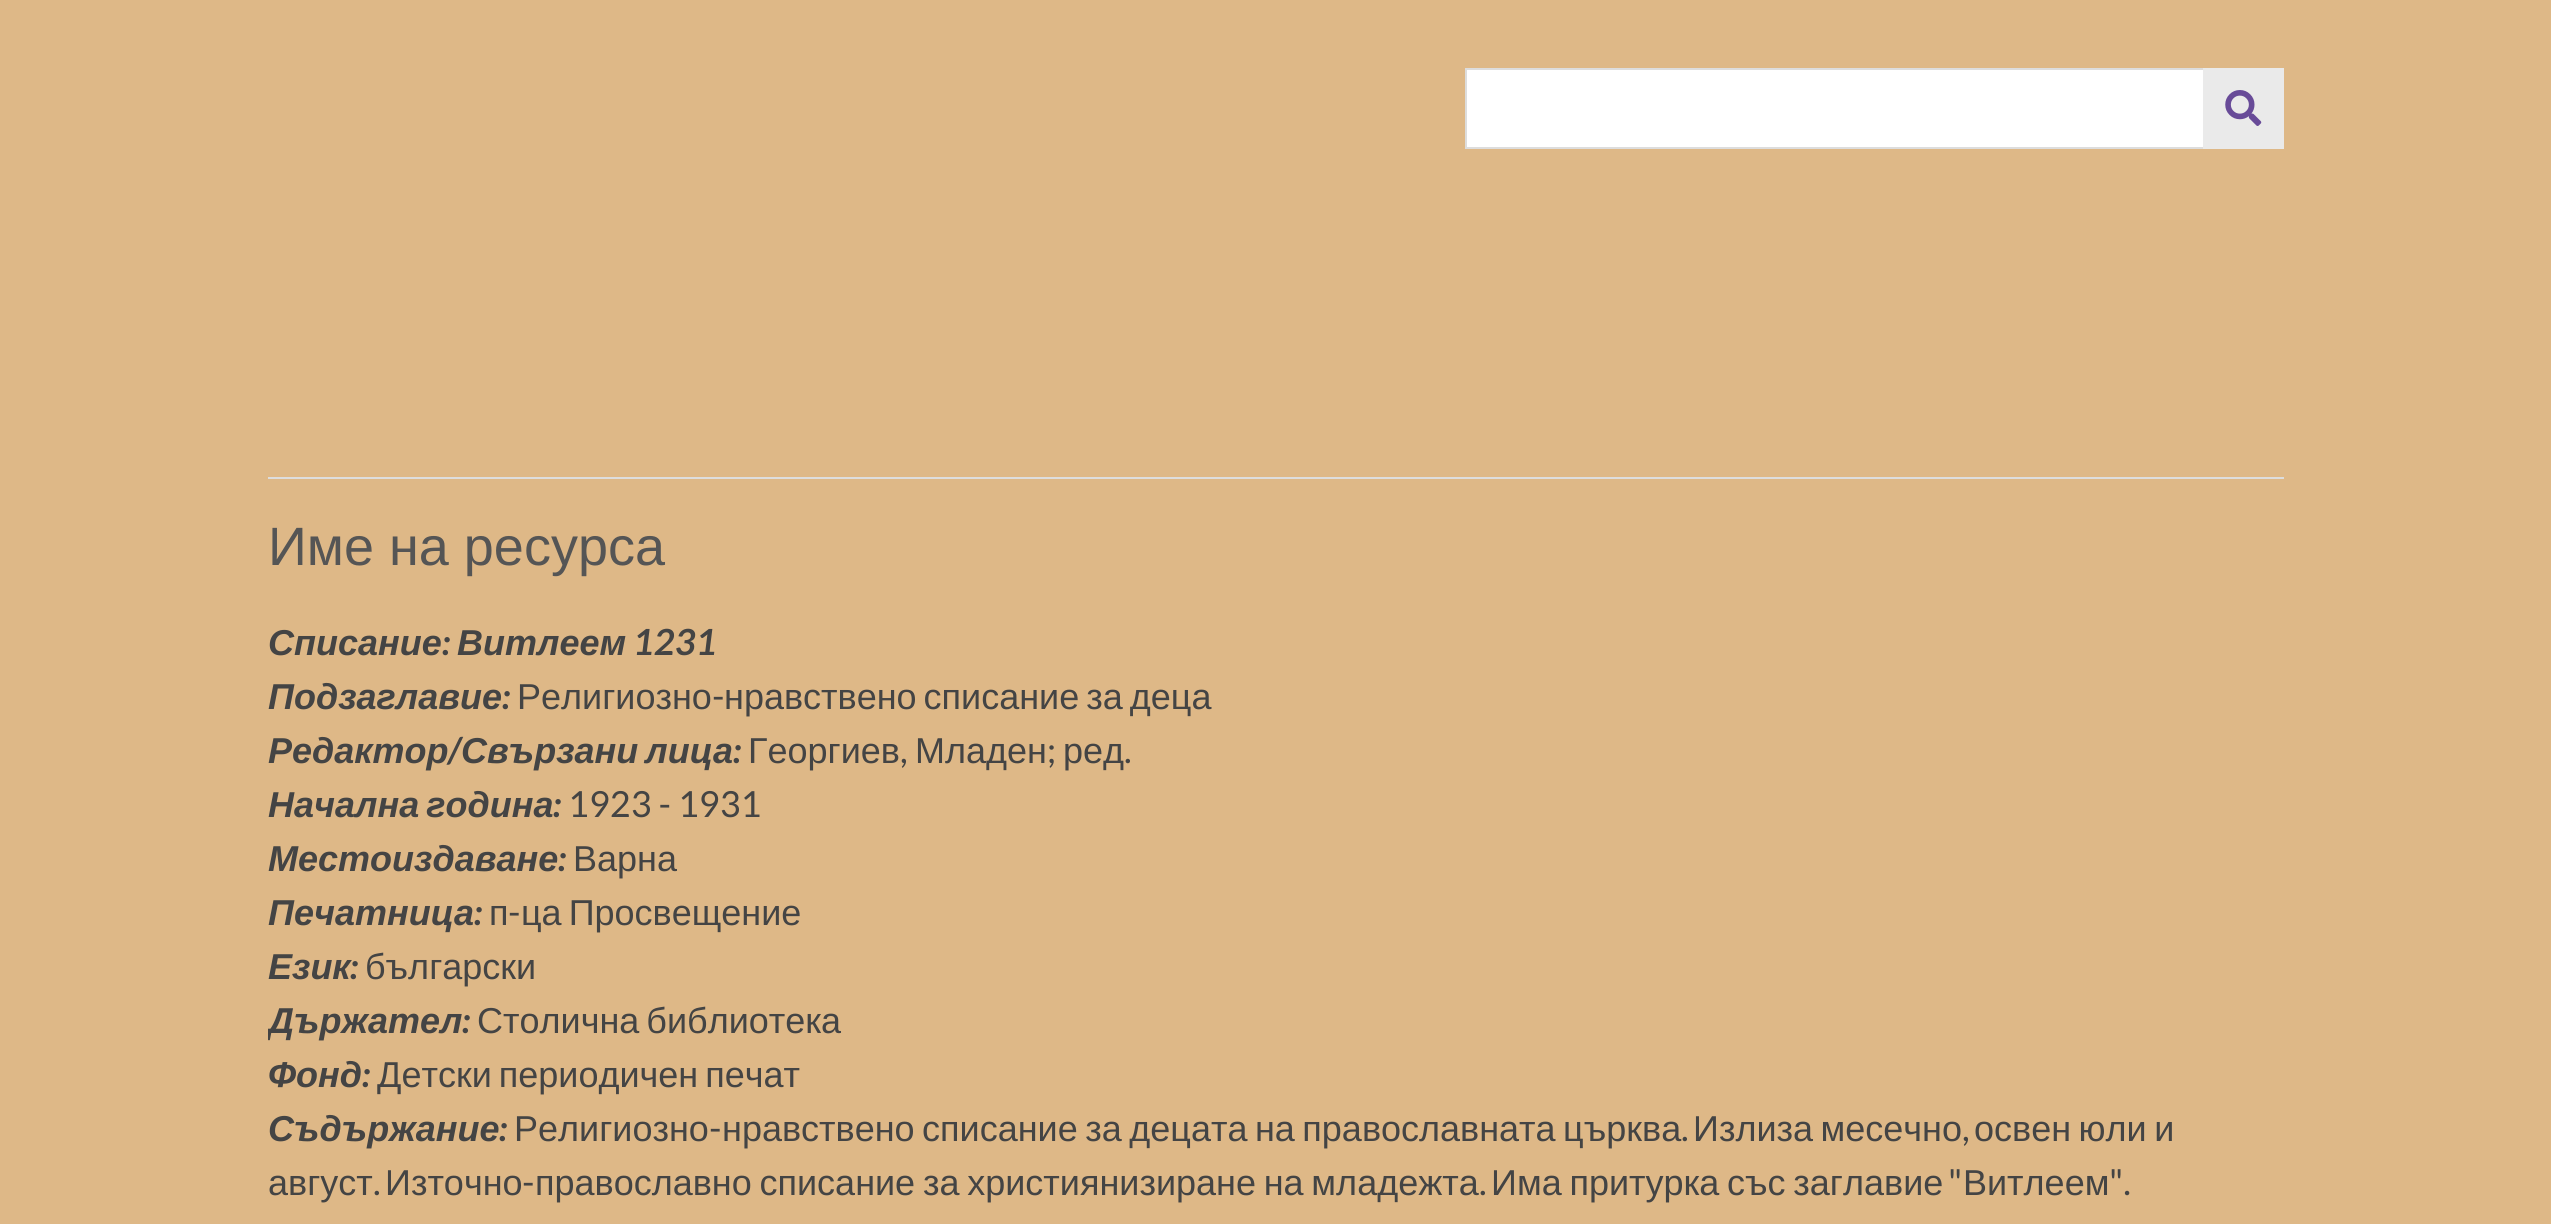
import math
import cairo

surface = cairo.ImageSurface(cairo.FORMAT_RGB24, 2551, 1224)
c = cairo.Context(surface)
options = cairo.FontOptions()
options.set_hint_metrics(cairo.HINT_METRICS_OFF)
options.set_hint_style(cairo.HINT_STYLE_NONE)
c.set_font_options(options)
c.set_miter_limit(4)
def C(code):
 c.set_source_rgb(*(v / 255 for v in bytes.fromhex(code[-6:])))
def F(family, size, italic, bold):
 c.select_font_face(family, cairo.FONT_SLANT_ITALIC if italic else cairo.FONT_SLANT_NORMAL, cairo.FONT_WEIGHT_BOLD if bold else cairo.FONT_WEIGHT_NORMAL)
 c.set_font_size(size)
def T(x, y, s):
 c.move_to(x, y)
 c.show_text(s)
def L(x, y, s, letter, word):
 c.move_to(x, y)
 for ch in s:
  c.show_text(ch)
  c.rel_move_to(letter + word * (ch == ' '), 0)
def R(x, y, w, h):
 c.rectangle(x, y, w, h)
 c.fill()
def I(path, x, y, w, h):
 c.save()
 c.set_source_surface(cairo.ImageSurface.create_from_png(path), x, y)
 c.rectangle(x, y, w, h)
 c.fill()
 c.restore()
C('deb887')
c.paint()
C('ffffff')
R(1467,70,736,77)
c.rectangle(1466,69,740,79)
C('dddddd')
c.stroke()
C('eaeaea')
R(2203,68,81,81)
I('1.png',2225,90,37,36)
C('dddddd')
R(268,477,2016,2)
F('Liberation Sans',54,0,0)
C('555555')
T(268,565,'Име на ресурса')
F('Liberation Sans',36,1,1)
C('444444')
T(268,655,'Списание')
F('Lato',36,1,1)
T(442,655,':')
F('Liberation Sans',36,1,1)
T(457,655,'Витлеем')
F('Lato',36,1,1)
T(633,655,'1231')
F('Liberation Sans',36,1,1)
T(268,709,'Подзаглавие')
F('Lato',36,1,1)
T(502,709,':')
F('Liberation Sans',36,0,0)
T(517,709,'Религиозно')
F('Lato',36,0,0)
T(712,709,'-')
F('Liberation Sans',36,0,0)
L(724,709,'нравствено списание за деца',0,-3)
F('Liberation Sans',36,1,1)
T(268,763,'Редактор')
F('Lato',36,1,1)
T(448,763,'/')
F('Liberation Sans',36,1,1)
L(461,763,'Свързани лица',0,-3)
F('Lato',36,1,1)
T(733,763,':')
F('Liberation Sans',36,0,0)
T(748,763,'Георгиев')
F('Lato',36,0,0)
T(900,763,',')
F('Liberation Sans',36,0,0)
T(915,763,'Младен')
F('Lato',36,0,0)
T(1047,763,';')
F('Liberation Sans',36,0,0)
T(1063,763,'ред')
F('Lato',36,0,0)
T(1124,763,'.')
F('Liberation Sans',36,1,1)
L(268,817,'Начална година',0,-3)
F('Lato',36,1,1)
T(553,817,':')
F('Lato',36,0,0)
T(568,817,'1923 - 1931')
F('Liberation Sans',36,1,1)
T(268,871,'Местоиздаване')
F('Lato',36,1,1)
T(558,871,':')
F('Liberation Sans',36,0,0)
T(573,871,'Варна')
F('Liberation Sans',36,1,1)
T(268,925,'Печатница')
F('Lato',36,1,1)
T(474,925,':')
F('Liberation Sans',36,0,0)
T(489,925,'п')
F('Lato',36,0,0)
T(508,925,'-')
F('Liberation Sans',36,0,0)
L(521,925,'ца Просвещение',0,-3)
F('Liberation Sans',36,1,1)
T(268,979,'Език')
F('Lato',36,1,1)
T(350,979,':')
F('Liberation Sans',36,0,0)
T(365,979,'български')
c.save()
c.rectangle(268,479,2016,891)
c.clip()
F('Liberation Sans',36,1,1)
T(268,1033,'Държател')
c.restore()
F('Lato',36,1,1)
T(462,1033,':')
F('Liberation Sans',36,0,0)
L(477,1033,'Столична библиотека',0,-3)
F('Liberation Sans',36,1,1)
T(268,1087,'Фонд')
F('Lato',36,1,1)
T(362,1087,':')
F('Liberation Sans',36,0,0)
L(377,1087,'Детски периодичен печат',0,-3)
F('Liberation Sans',36,1,1)
T(268,1141,'Съдържание')
F('Lato',36,1,1)
T(499,1141,':')
F('Liberation Sans',36,0,0)
T(514,1141,'Религиозно')
F('Lato',36,0,0)
T(709,1141,'-')
F('Liberation Sans',36,0,0)
L(722,1141,'нравствено списание за децата на православната църква',0,-2.5)
L(1693,1141,'Излиза месечно',0,-2.5)
L(1974,1141,'освен юли и',0,-2.5)
F('Lato',36,0,0)
T(1681,1141,'.')
T(1962,1141,',')
F('Liberation Sans',36,0,0)
T(268,1195,'август')
T(385,1195,'Източно')
F('Lato',36,0,0)
T(522,1195,'-')
F('Liberation Sans',36,0,0)
L(535,1195,'православно списание за християнизиране на младежта',0,-2.25)
L(1491,1195,'Има притурка със заглавие',0,-2.25)
F('Lato',36,0,0)
T(1948,1195,'"')
F('Liberation Sans',36,0,0)
T(1963,1195,'Витлеем')
F('Lato',36,0,0)
T(2109,1195,'".')
T(373,1195,'.')
T(1479,1195,'.')
surface.write_to_png('o.png')
